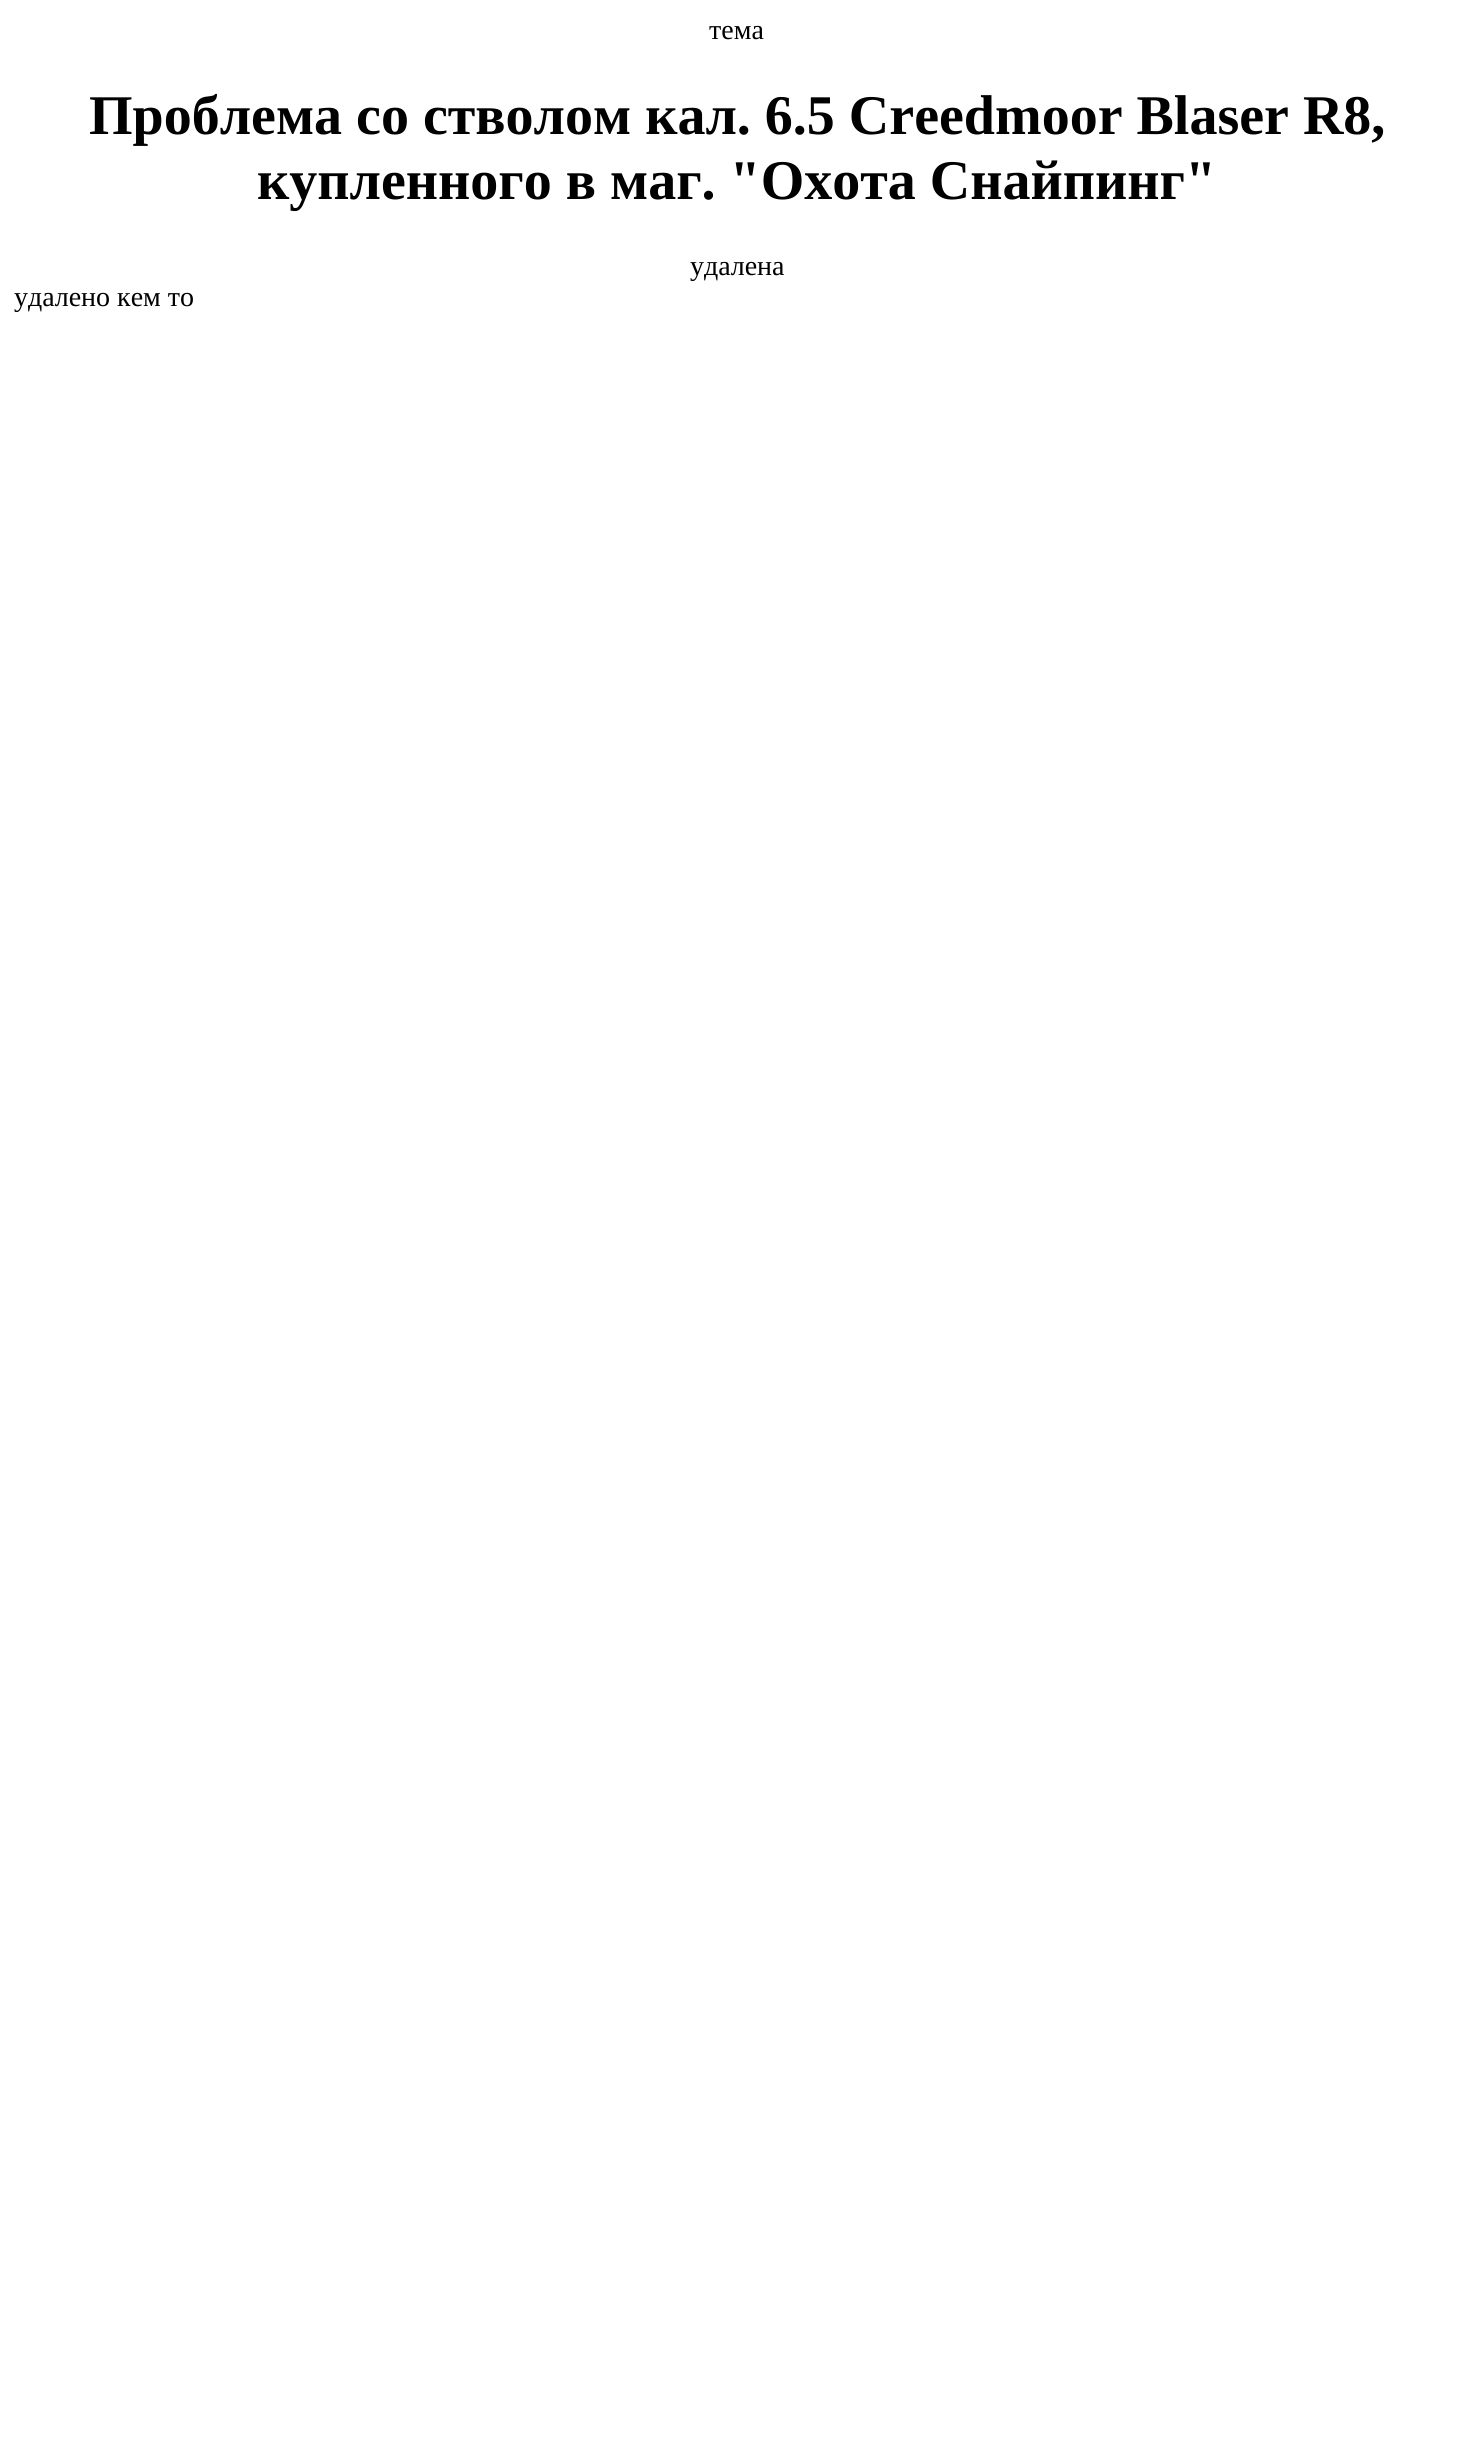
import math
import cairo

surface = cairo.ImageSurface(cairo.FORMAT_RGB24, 1472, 2463)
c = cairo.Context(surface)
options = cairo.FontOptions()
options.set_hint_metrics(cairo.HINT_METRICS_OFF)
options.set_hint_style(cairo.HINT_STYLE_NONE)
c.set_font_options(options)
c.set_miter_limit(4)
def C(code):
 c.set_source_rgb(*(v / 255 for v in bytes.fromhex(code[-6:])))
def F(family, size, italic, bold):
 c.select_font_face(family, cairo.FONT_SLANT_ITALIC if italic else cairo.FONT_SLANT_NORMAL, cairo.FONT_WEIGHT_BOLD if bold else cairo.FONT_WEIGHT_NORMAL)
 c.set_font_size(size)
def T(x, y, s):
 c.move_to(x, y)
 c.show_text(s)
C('ffffff')
c.paint()
F('Liberation Serif',28,0,0)
C('000000')
T(709,39,'тема')
F('Liberation Serif',56,0,1)
T(89,134,'Проблема со стволом кал. 6.5 Creedmoor Blaser R8,')
T(257,199,'купленного в маг. "Охота Снайпинг"')
F('Liberation Serif',28,0,0)
T(690,275,'удалена')
T(14,306,'удалено кем то')
surface.write_to_png('o.png')
